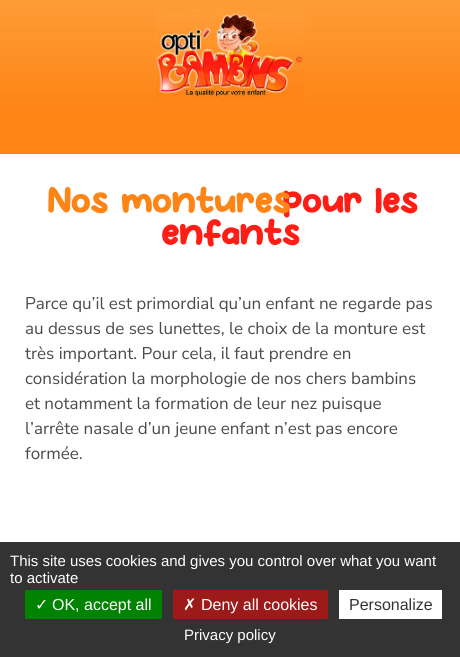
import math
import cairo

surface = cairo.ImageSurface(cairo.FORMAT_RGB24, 460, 657)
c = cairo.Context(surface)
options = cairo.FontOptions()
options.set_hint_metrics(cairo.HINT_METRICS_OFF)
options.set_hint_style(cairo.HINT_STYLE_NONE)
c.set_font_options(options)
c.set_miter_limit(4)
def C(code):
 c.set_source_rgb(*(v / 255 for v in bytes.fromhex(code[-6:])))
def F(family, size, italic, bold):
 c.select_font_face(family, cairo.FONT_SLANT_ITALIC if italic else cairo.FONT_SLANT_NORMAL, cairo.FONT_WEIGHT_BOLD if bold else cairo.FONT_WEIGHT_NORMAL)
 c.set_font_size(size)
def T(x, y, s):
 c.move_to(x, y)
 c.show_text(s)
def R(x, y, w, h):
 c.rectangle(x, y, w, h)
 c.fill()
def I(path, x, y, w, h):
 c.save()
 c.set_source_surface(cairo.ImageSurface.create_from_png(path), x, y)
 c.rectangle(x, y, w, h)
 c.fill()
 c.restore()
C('ffffff')
c.paint()
gradient = cairo.LinearGradient(230,0,230,111)
gradient.add_color_stop_rgba(0,0.996,0.612,0.208,1)
gradient.add_color_stop_rgba(1,0.996,0.518,0.086,1)
c.set_source(gradient)
R(0,0,460,111)
I('1.png',155,10,150,90)
C('fe8416')
R(0,111,460,43)
F('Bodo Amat',32,0,1)
C('ff1d15')
T(282,212,'pour les')
C('fe8416')
T(47,212,'Nos montures')
C('ff1d15')
T(161,244,'enfants')
F('Nunito Sans',17,0,0)
C('4a4a4a')
T(25,309,'Parce qu’il est primordial qu’un enfant ne regarde pas')
T(25,334,'au dessus de ses lunettes, le choix de la monture est')
T(25,359,'très important. Pour cela, il faut prendre en')
T(25,384,'considération la morphologie de nos chers bambins')
T(25,409,'et notamment la formation de leur nez puisque')
T(25,434,'l’arrête nasale d’un jeune enfant n’est pas encore')
T(25,459,'formée.')
C('333333')
R(0,542,460,115)
F('Liberation Sans',15,0,0)
C('ffffff')
T(10,566,'This site uses cookies and gives you control over what you want')
T(10,583,'to activate')
C('008300')
R(25,590,137,29)
F('DejaVu Sans',16,0,0)
C('ffffff')
T(35,610,'✓')
F('Liberation Sans',16,0,0)
T(52,610,'OK, accept all')
C('9c1a1a')
R(173,590,155,29)
F('DejaVu Sans',16,0,0)
C('ffffff')
T(183,610,'✗')
F('Liberation Sans',16,0,0)
T(201,610,'Deny all cookies')
R(339,590,103,29)
C('333333')
T(349,610,'Personalize')
F('Liberation Sans',15,0,0)
C('ffffff')
T(184,640,'Privacy policy')
surface.write_to_png('o.png')
